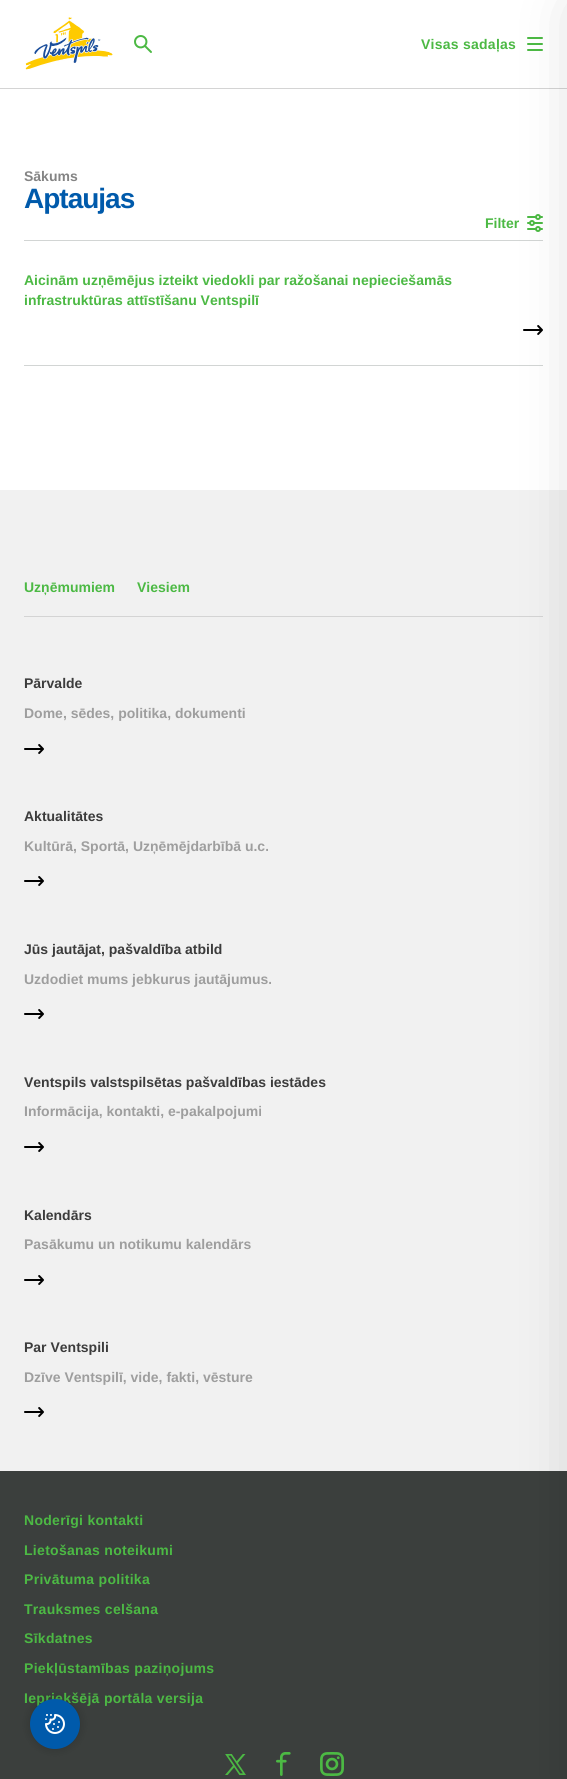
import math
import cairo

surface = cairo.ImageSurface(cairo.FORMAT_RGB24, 567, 1779)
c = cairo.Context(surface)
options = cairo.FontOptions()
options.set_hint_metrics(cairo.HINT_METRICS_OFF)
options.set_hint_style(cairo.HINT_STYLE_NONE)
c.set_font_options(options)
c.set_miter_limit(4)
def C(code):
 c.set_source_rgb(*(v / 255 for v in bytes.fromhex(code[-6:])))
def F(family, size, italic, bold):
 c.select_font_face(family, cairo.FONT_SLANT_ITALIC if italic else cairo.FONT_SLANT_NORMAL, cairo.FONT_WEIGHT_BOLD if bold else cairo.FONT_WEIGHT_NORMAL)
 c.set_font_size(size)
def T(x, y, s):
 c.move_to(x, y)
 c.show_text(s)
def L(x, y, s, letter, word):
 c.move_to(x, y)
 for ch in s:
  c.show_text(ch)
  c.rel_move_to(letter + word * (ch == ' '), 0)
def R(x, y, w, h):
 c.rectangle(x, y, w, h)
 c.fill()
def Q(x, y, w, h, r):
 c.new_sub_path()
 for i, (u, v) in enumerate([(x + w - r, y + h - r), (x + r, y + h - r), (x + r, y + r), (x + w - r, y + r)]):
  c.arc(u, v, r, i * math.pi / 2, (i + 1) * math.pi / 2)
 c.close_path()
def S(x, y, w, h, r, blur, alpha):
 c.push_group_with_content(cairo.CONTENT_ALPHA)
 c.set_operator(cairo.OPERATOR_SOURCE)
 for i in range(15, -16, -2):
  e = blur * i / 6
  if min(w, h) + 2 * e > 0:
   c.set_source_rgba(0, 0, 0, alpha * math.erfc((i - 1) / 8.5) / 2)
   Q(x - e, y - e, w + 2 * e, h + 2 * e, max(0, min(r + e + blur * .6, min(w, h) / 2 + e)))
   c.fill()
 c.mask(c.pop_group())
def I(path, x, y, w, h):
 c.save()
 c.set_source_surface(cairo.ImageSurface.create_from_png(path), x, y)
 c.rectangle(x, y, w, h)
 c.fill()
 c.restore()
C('ffffff')
c.paint()
C('d4d4d4')
R(0,88,567,1)
I('1.png',25,17,88,53)
I('2.png',134,35,18,18)
F('Liberation Sans',14,0,1)
C('4cb944')
L(421,49,'Visas sadaļas',.25,0)
I('3.png',527,37,16,2)
I('3.png',527,43,16,2)
I('3.png',527,49,16,2)
I('4.png',527,214,16,18)
C('d2d5d4')
R(24,365,519,1)
R(24,240,519,1)
I('5.png',523,325,20,10)
C('f1f1f1')
R(0,490,567,981)
C('d4d4d4')
R(24,616,519,1)
C('3b3f3d')
R(0,1471,567,308)
C('000000')
S(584,10,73,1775,0,30,.2)
C('848484')
T(24,181,'Sākums')
F('Liberation Sans',28,0,1)
C('005aab')
L(24,208,'Aptaujas',-1,0)
F('Liberation Sans',14,0,1)
C('4cb944')
T(485,228,'Filter')
T(24,285,'Aicinām uzņēmējus izteikt viedokli par ražošanai nepieciešamās')
T(24,305,'infrastruktūras attīstīšanu Ventspilī')
T(24,592,'Uzņēmumiem')
T(137,592,'Viesiem')
C('3c3c3c')
T(24,688,'Pārvalde')
C('9e9e9e')
T(24,718,'Dome, sēdes, politika, dokumenti')
I('6.png',24,744,20,10)
C('3c3c3c')
T(24,821,'Aktualitātes')
C('9e9e9e')
T(24,851,'Kultūrā, Sportā, Uzņēmējdarbībā u.c.')
I('6.png',24,876,20,10)
C('3c3c3c')
T(24,954,'Jūs jautājat, pašvaldība atbild')
C('9e9e9e')
T(24,984,'Uzdodiet mums jebkurus jautājumus.')
I('6.png',24,1009,20,10)
C('3c3c3c')
T(24,1087,'Ventspils valstspilsētas pašvaldības iestādes')
C('9e9e9e')
T(24,1116,'Informācija, kontakti, e-pakalpojumi')
I('6.png',24,1142,20,10)
C('3c3c3c')
T(24,1220,'Kalendārs')
C('9e9e9e')
T(24,1249,'Pasākumu un notikumu kalendārs')
I('6.png',24,1275,20,10)
C('3c3c3c')
T(24,1352,'Par Ventspili')
C('9e9e9e')
T(24,1382,'Dzīve Ventspilī, vide, fakti, vēsture')
I('6.png',24,1407,20,10)
C('4cb944')
L(24,1525,'Noderīgi kontakti',.3,0)
L(24,1555,'Lietošanas noteikumi',.3,0)
L(24,1584,'Privātuma politika',.3,0)
L(24,1614,'Trauksmes celšana',.3,0)
L(24,1643,'Sīkdatnes',.3,0)
L(24,1673,'Piekļūstamības paziņojums',.3,0)
L(24,1703,'Iepriekšējā portāla versija',.3,0)
I('7.png',225,1754,21,21)
I('8.png',276,1752,15,24)
I('9.png',320,1752,24,24)
C('000000')
S(30,1699,50,50,25,5,.2)
C('005aab')
c.arc(55,1724,25,0,2 * math.pi)
c.fill()
I('10.png',45,1714,20,20)
surface.write_to_png('o.png')
